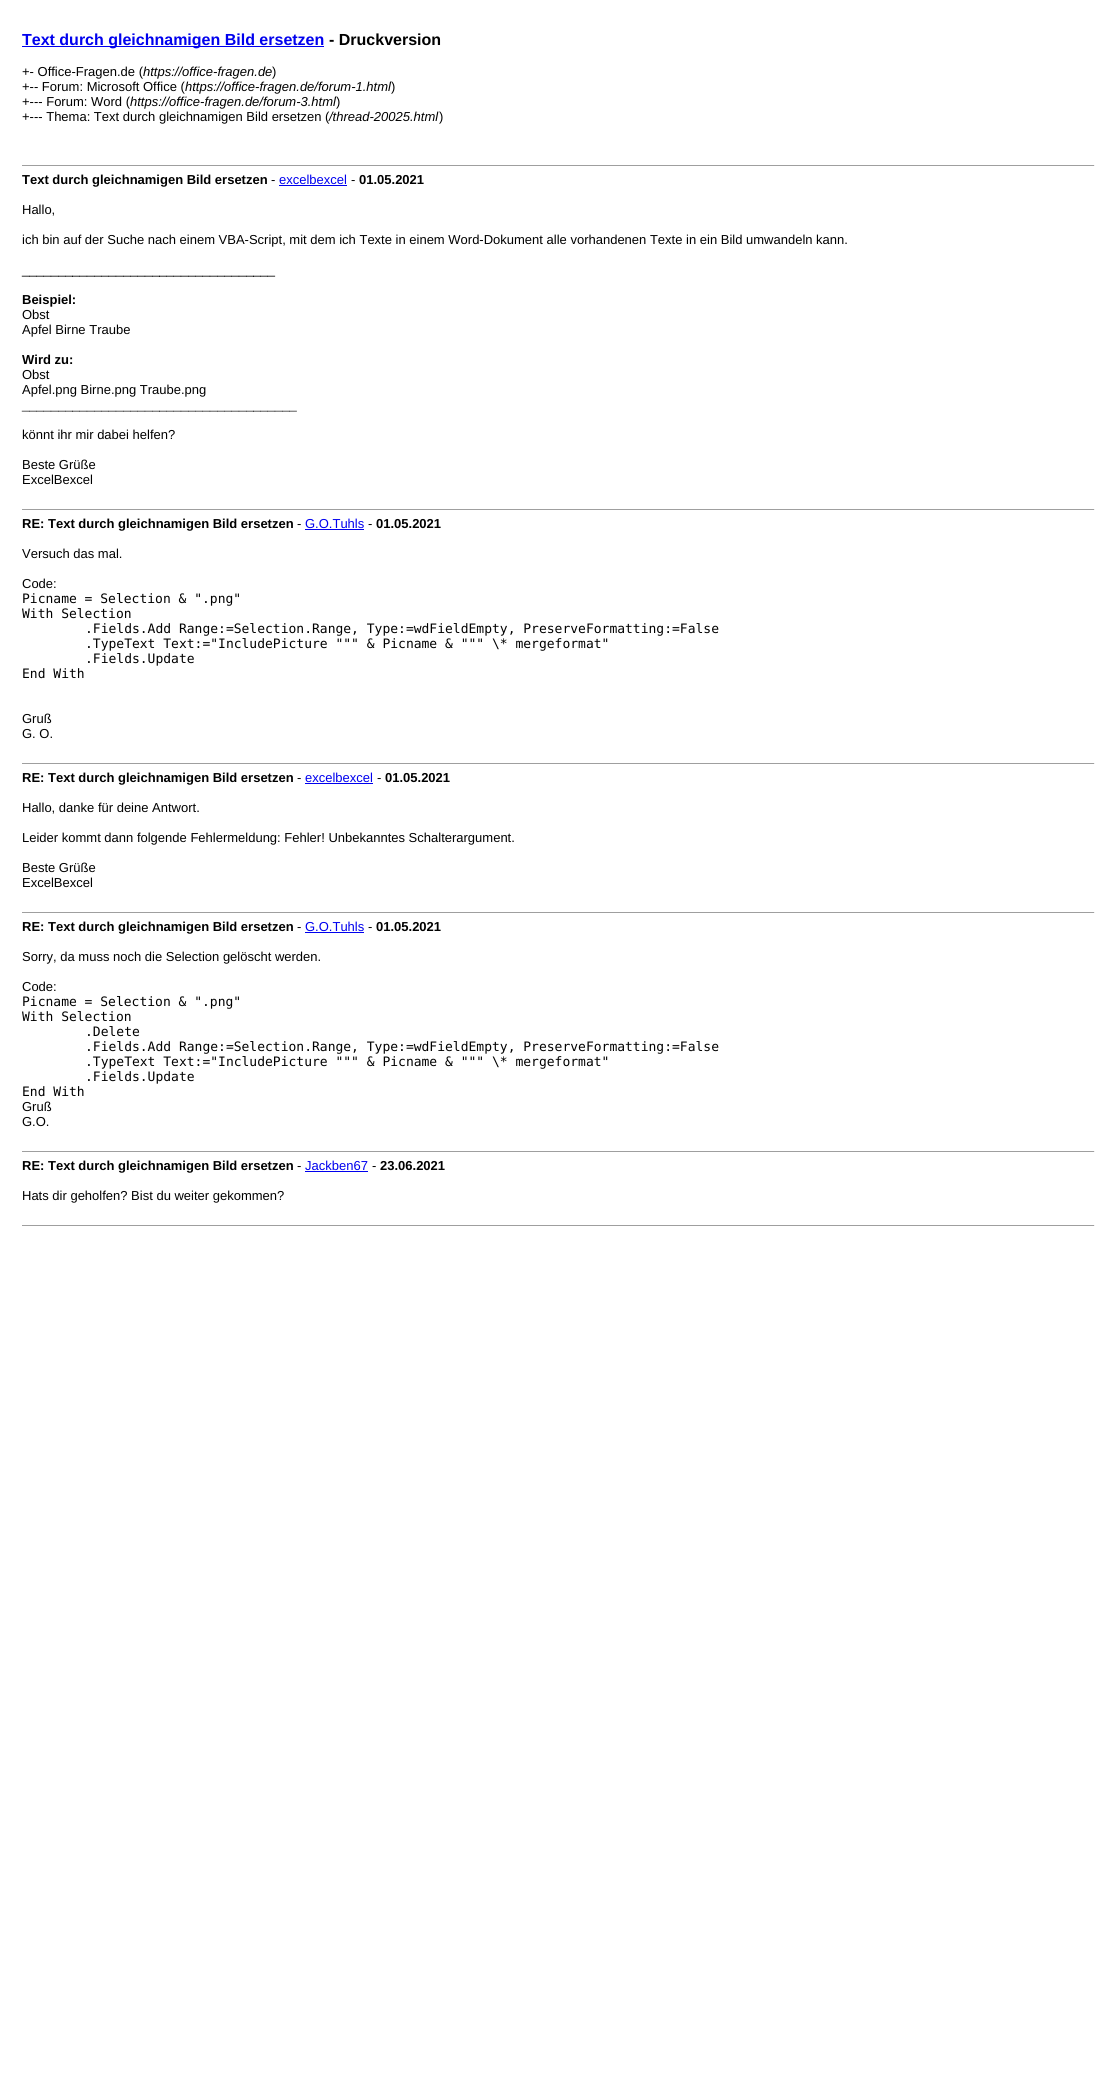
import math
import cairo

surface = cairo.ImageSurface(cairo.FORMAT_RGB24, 1117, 2077)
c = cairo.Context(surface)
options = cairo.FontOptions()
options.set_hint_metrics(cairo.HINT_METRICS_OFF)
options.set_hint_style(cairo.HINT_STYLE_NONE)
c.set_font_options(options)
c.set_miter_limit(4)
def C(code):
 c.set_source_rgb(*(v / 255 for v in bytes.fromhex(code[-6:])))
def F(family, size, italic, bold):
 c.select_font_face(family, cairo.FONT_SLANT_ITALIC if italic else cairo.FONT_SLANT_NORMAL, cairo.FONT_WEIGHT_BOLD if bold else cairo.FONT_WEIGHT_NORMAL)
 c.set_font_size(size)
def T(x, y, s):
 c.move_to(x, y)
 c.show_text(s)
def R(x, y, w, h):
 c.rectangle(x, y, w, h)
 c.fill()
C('ffffff')
c.paint()
C('0000ee')
R(22,46,302,1)
F('Liberation Sans',16,0,1)
T(22,45,'Text durch gleichnamigen Bild ersetzen')
C('000000')
T(329,45,'- Druckversion')
F('Liberation Sans',13,0,0)
T(22,76,'+- Office-Fragen.de (')
F('Liberation Sans',13,1,0)
T(143,76,'https://office-fragen.de')
F('Liberation Sans',13,0,0)
T(272,76,')')
T(22,91,'+-- Forum: Microsoft Office (')
F('Liberation Sans',13,1,0)
T(185,91,'https://office-fragen.de/forum-1.html')
F('Liberation Sans',13,0,0)
T(391,91,')')
T(22,106,'+--- Forum: Word (')
F('Liberation Sans',13,1,0)
T(130,106,'https://office-fragen.de/forum-3.html')
F('Liberation Sans',13,0,0)
T(336,106,')')
T(22,121,'+--- Thema: Text durch gleichnamigen Bild ersetzen (')
F('Liberation Sans',13,1,0)
T(329,121,'/thread-20025.html')
F('Liberation Sans',13,0,0)
T(439,121,')')
C('9f9f9f')
R(22,165,1073,1)
C('eeeeee')
R(1094,165,1,1)
F('Liberation Sans',13,0,1)
C('000000')
T(22,184,'Text durch gleichnamigen Bild ersetzen')
F('Liberation Sans',13,0,0)
T(271,184,'-')
C('0000ee')
T(279,184,'excelbexcel')
R(279,185,68,1)
C('000000')
T(351,184,'-')
F('Liberation Sans',13,0,1)
T(359,184,'01.05.2021')
F('Liberation Sans',13,0,0)
T(22,214,'Hallo,')
T(22,244,'ich bin auf der Suche nach einem VBA-Script, mit dem ich Texte in einem Word-Dokument alle vorhandenen Texte in ein Bild umwandeln kann.')
T(22,274,'___________________________________')
F('Liberation Sans',13,0,1)
T(22,304,'Beispiel:')
F('Liberation Sans',13,0,0)
T(22,319,'Obst')
T(22,334,'Apfel Birne Traube')
F('Liberation Sans',13,0,1)
T(22,364,'Wird zu:')
F('Liberation Sans',13,0,0)
T(22,379,'Obst')
T(22,394,'Apfel.png Birne.png Traube.png')
C('333333')
T(22,409,'______________________________________')
C('000000')
T(22,439,'könnt ihr mir dabei helfen?')
T(22,469,'Beste Grüße')
T(22,484,'ExcelBexcel')
C('9f9f9f')
R(22,509,1073,1)
C('eeeeee')
R(1094,509,1,1)
F('Liberation Sans',13,0,1)
C('000000')
T(22,528,'RE: Text durch gleichnamigen Bild ersetzen')
F('Liberation Sans',13,0,0)
T(297,528,'-')
C('0000ee')
T(305,528,'G.O.Tuhls')
R(305,529,59,1)
C('000000')
T(368,528,'-')
F('Liberation Sans',13,0,1)
T(376,528,'01.05.2021')
F('Liberation Sans',13,0,0)
T(22,558,'Versuch das mal.')
T(22,588,'Code:')
F('DejaVu Sans Mono',13,0,0)
T(22,603,'Picname = Selection & ".png"')
T(22,618,'With Selection')
T(85,633,'.Fields.Add Range:=Selection.Range, Type:=wdFieldEmpty, PreserveFormatting:=False')
T(85,648,'.TypeText Text:="IncludePicture """ & Picname & """ \\* mergeformat"')
T(85,663,'.Fields.Update')
T(22,678,'End With')
F('Liberation Sans',13,0,0)
T(22,723,'Gruß')
T(22,738,'G. O.')
C('9f9f9f')
R(22,763,1073,1)
C('eeeeee')
R(1094,763,1,1)
F('Liberation Sans',13,0,1)
C('000000')
T(22,782,'RE: Text durch gleichnamigen Bild ersetzen')
F('Liberation Sans',13,0,0)
T(297,782,'-')
C('0000ee')
T(305,782,'excelbexcel')
R(305,783,68,1)
C('000000')
T(377,782,'-')
F('Liberation Sans',13,0,1)
T(385,782,'01.05.2021')
F('Liberation Sans',13,0,0)
T(22,812,'Hallo, danke für deine Antwort.')
T(22,842,'Leider kommt dann folgende Fehlermeldung: Fehler! Unbekanntes Schalterargument.')
T(22,872,'Beste Grüße')
T(22,887,'ExcelBexcel')
C('9f9f9f')
R(22,912,1073,1)
C('eeeeee')
R(1094,912,1,1)
F('Liberation Sans',13,0,1)
C('000000')
T(22,931,'RE: Text durch gleichnamigen Bild ersetzen')
F('Liberation Sans',13,0,0)
T(297,931,'-')
C('0000ee')
T(305,931,'G.O.Tuhls')
R(305,932,59,1)
C('000000')
T(368,931,'-')
F('Liberation Sans',13,0,1)
T(376,931,'01.05.2021')
F('Liberation Sans',13,0,0)
T(22,961,'Sorry, da muss noch die Selection gelöscht werden.')
T(22,991,'Code:')
F('DejaVu Sans Mono',13,0,0)
T(22,1006,'Picname = Selection & ".png"')
T(22,1021,'With Selection')
T(85,1036,'.Delete')
T(85,1051,'.Fields.Add Range:=Selection.Range, Type:=wdFieldEmpty, PreserveFormatting:=False')
T(85,1066,'.TypeText Text:="IncludePicture """ & Picname & """ \\* mergeformat"')
T(85,1081,'.Fields.Update')
T(22,1096,'End With')
F('Liberation Sans',13,0,0)
T(22,1111,'Gruß')
T(22,1126,'G.O.')
C('9f9f9f')
R(22,1151,1073,1)
C('eeeeee')
R(1094,1151,1,1)
F('Liberation Sans',13,0,1)
C('000000')
T(22,1170,'RE: Text durch gleichnamigen Bild ersetzen')
F('Liberation Sans',13,0,0)
T(297,1170,'-')
C('0000ee')
T(305,1170,'Jackben67')
R(305,1171,63,1)
C('000000')
T(372,1170,'-')
F('Liberation Sans',13,0,1)
T(380,1170,'23.06.2021')
F('Liberation Sans',13,0,0)
T(22,1200,'Hats dir geholfen? Bist du weiter gekommen?')
C('9f9f9f')
R(22,1225,1073,1)
C('eeeeee')
R(1094,1225,1,1)
surface.write_to_png('o.png')
